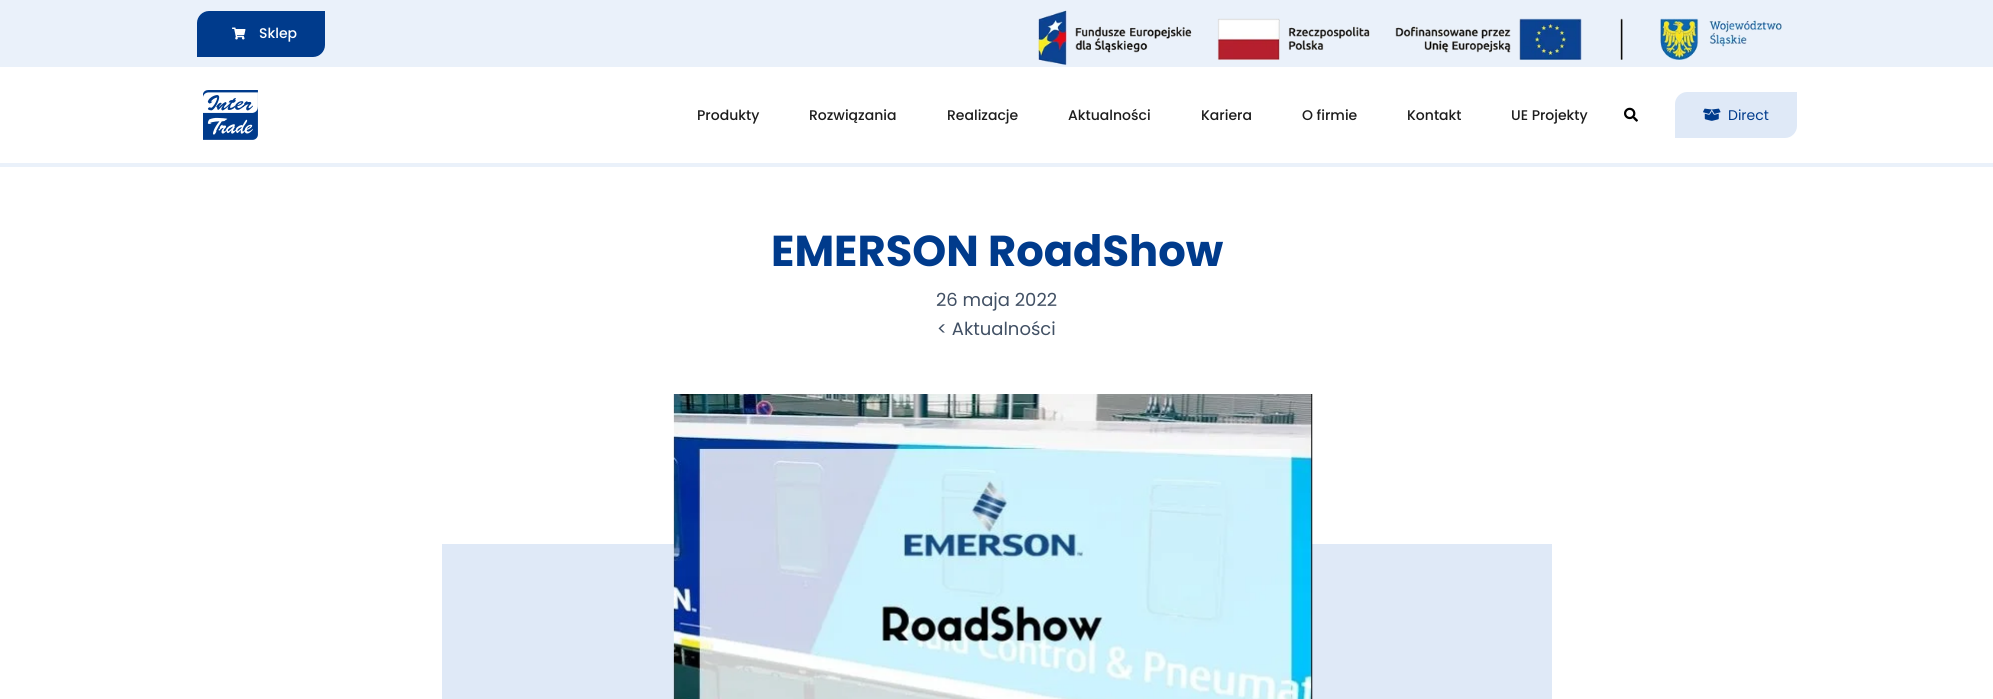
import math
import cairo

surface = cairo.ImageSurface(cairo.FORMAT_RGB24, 1993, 699)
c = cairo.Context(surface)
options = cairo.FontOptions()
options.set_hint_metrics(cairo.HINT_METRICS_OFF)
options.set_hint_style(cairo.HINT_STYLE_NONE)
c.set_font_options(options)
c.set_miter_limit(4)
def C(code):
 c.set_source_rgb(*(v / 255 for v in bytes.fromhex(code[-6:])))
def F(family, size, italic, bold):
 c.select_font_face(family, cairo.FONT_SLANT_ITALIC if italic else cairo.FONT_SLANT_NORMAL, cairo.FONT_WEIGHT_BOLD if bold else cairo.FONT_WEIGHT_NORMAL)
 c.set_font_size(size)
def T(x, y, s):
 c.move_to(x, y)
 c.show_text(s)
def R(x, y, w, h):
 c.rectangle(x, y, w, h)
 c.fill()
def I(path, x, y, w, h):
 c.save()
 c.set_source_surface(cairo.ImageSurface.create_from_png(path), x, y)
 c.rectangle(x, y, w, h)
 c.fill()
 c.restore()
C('ffffff')
c.paint()
C('eaf1fa')
R(0,0,1993,67)
C('003b8c')
c.new_path()
c.move_to(209,11)
c.line_to(325,11)
c.line_to(325,45)
c.curve_to(325,51.5,319.5,57,313,57)
c.line_to(197,57)
c.line_to(197,23)
c.curve_to(197,16.5,202.5,11,209,11)
c.close_path()
c.fill()
I('1.png',232,27,14,13)
F('Poppins Medium',14,0,0)
C('ffffff')
T(259,38,'Sklep')
I('2.png',1038,10,744,56)
C('eaf1fa')
R(0,163,1993,4)
I('3.png',203,90,55,50)
C('1d1d1d')
T(697,120,'Produkty')
T(809,120,'Rozwiązania')
T(947,120,'Realizacje')
T(1068,120,'Aktualności')
T(1201,120,'Kariera')
T(1302,120,'O firmie')
T(1407,120,'Kontakt')
T(1511,120,'UE Projekty')
I('4.png',1624,107,14,15)
C('dfe9f7')
c.new_path()
c.move_to(1687,92)
c.line_to(1797,92)
c.line_to(1797,126)
c.curve_to(1797,132.5,1791.5,138,1785,138)
c.line_to(1675,138)
c.line_to(1675,104)
c.curve_to(1675,97.5,1680.5,92,1687,92)
c.close_path()
c.fill()
I('5.png',1703,108,18,13)
F('Poppins',14,0,0)
C('003b8c')
T(1728,120,'Direct')
F('Poppins',43.25,0,1)
T(771,266,'EMERSON RoadShow')
F('Poppins',18,0,0)
C('415064')
T(936,306,'26 maja 2022')
T(937,335,'< Aktualności')
C('dfe9f7')
R(442,544,1110,155)
I('6.png',673,394,640,305)
surface.write_to_png('o.png')
